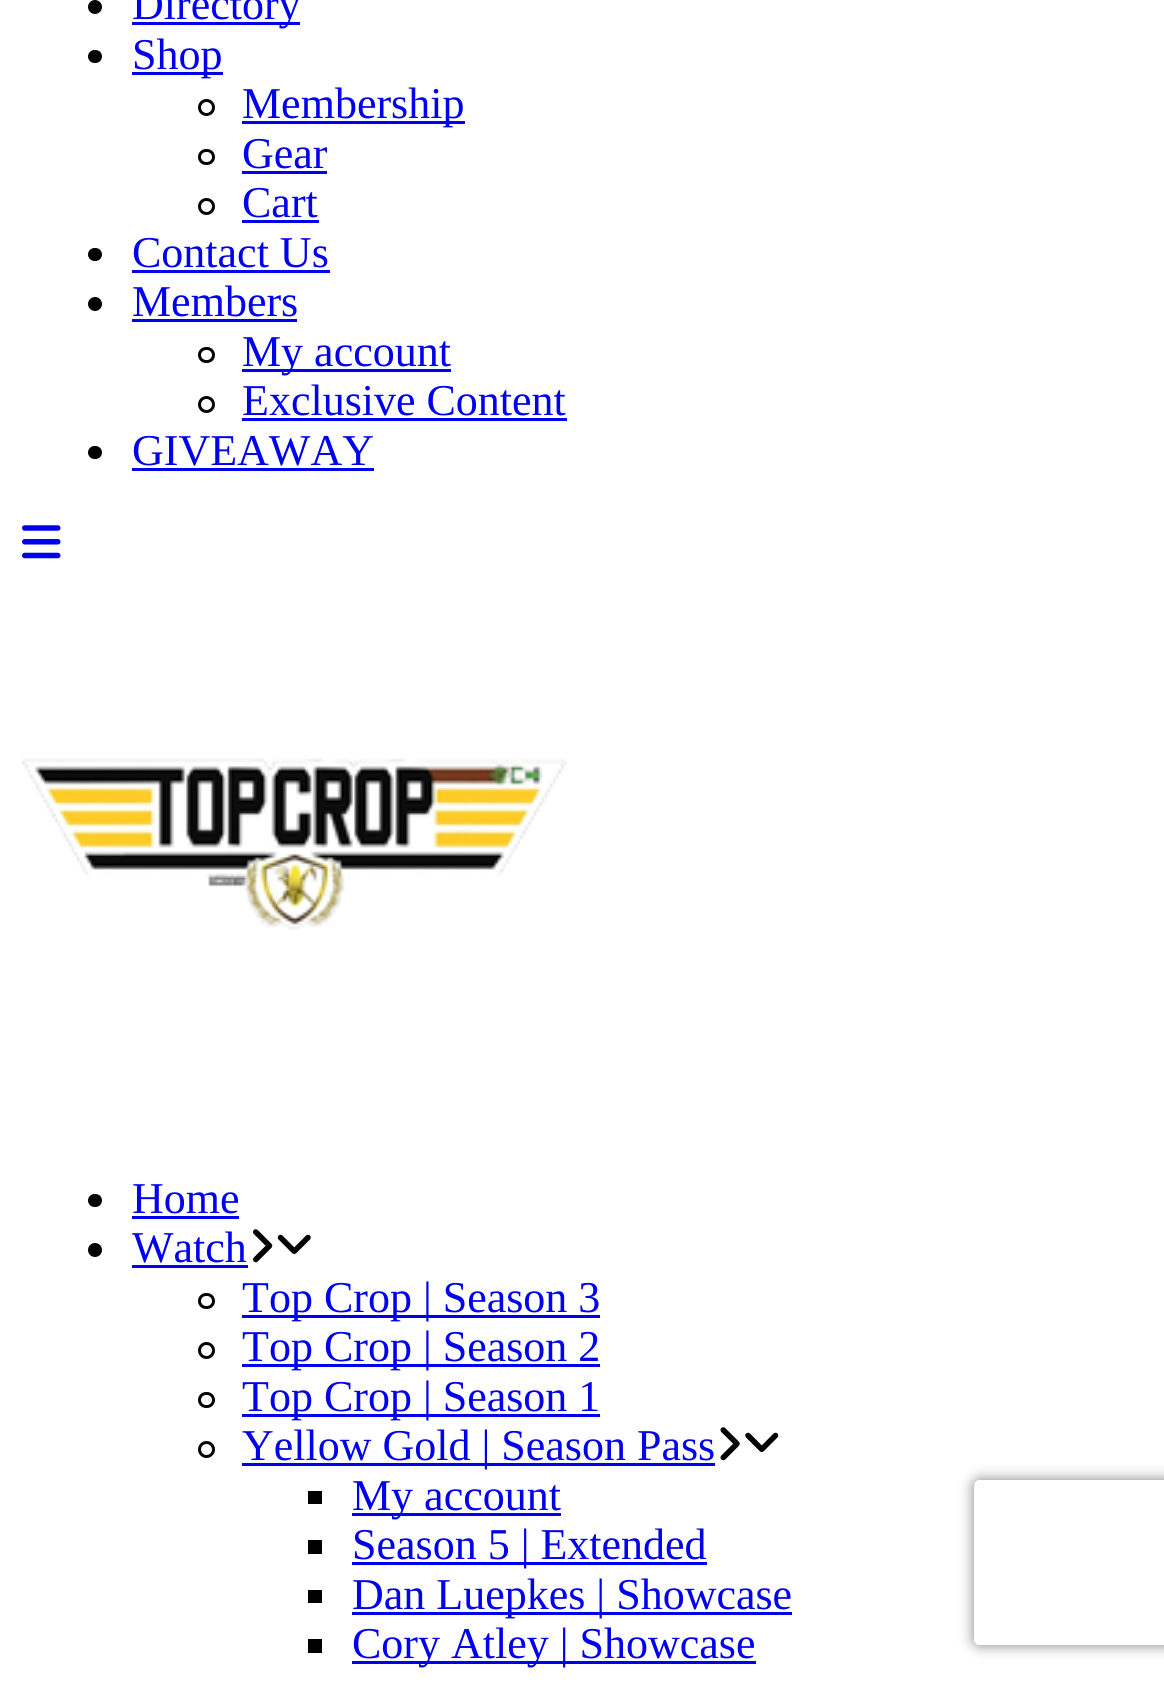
import math
import cairo

surface = cairo.ImageSurface(cairo.FORMAT_RGB24, 1164, 1683)
c = cairo.Context(surface)
options = cairo.FontOptions()
options.set_hint_metrics(cairo.HINT_METRICS_OFF)
options.set_hint_style(cairo.HINT_STYLE_NONE)
c.set_font_options(options)
c.set_miter_limit(4)
def C(code):
 c.set_source_rgb(*(v / 255 for v in bytes.fromhex(code[-6:])))
def F(family, size, italic, bold):
 c.select_font_face(family, cairo.FONT_SLANT_ITALIC if italic else cairo.FONT_SLANT_NORMAL, cairo.FONT_WEIGHT_BOLD if bold else cairo.FONT_WEIGHT_NORMAL)
 c.set_font_size(size)
def T(x, y, s):
 c.move_to(x, y)
 c.show_text(s)
def R(x, y, w, h):
 c.rectangle(x, y, w, h)
 c.fill()
def Q(x, y, w, h, r):
 c.new_sub_path()
 for i, (u, v) in enumerate([(x + w - r, y + h - r), (x + r, y + h - r), (x + r, y + r), (x + w - r, y + r)]):
  c.arc(u, v, r, i * math.pi / 2, (i + 1) * math.pi / 2)
 c.close_path()
def S(x, y, w, h, r, blur, alpha):
 c.push_group_with_content(cairo.CONTENT_ALPHA)
 c.set_operator(cairo.OPERATOR_SOURCE)
 for i in range(15, -16, -2):
  e = blur * i / 6
  if min(w, h) + 2 * e > 0:
   c.set_source_rgba(0, 0, 0, alpha * math.erfc((i - 1) / 8.5) / 2)
   Q(x - e, y - e, w + 2 * e, h + 2 * e, max(0, min(r + e + blur * .6, min(w, h) / 2 + e)))
   c.fill()
 c.mask(c.pop_group())
def I(path, x, y, w, h):
 c.save()
 c.set_source_surface(cairo.ImageSurface.create_from_png(path), x, y)
 c.rectangle(x, y, w, h)
 c.fill()
 c.restore()
C('ffffff')
c.paint()
C('000000')
c.arc(95,7,7,0,2 * math.pi)
c.fill()
C('0000ee')
R(132,22,168,3)
F('Liberation Serif',44,0,0)
T(132,19,'Directory')
C('000000')
Q(88,50,14,13,6.5)
c.fill()
C('0000ee')
R(132,72,91,3)
T(132,69,'Shop')
c.new_path()
c.arc(206.5,107.5,7,0,2 * math.pi)
C('000000')
c.set_line_width(3)
c.stroke()
C('0000ee')
R(242,121,223,3)
T(242,118,'Membership')
Q(199.5,150.5,14,13,6.5)
C('000000')
c.stroke()
C('0000ee')
T(242,168,'Gear')
R(242,171,85,3)
c.new_path()
c.arc(206.5,206.5,7,0,2 * math.pi)
C('000000')
c.stroke()
C('0000ee')
T(242,217,'Cart')
R(242,220,77,3)
C('000000')
Q(88,248,14,13,6.5)
c.fill()
C('0000ee')
T(132,267,'Contact Us')
R(132,270,198,3)
C('000000')
c.new_path()
c.arc(95,304,7,0,2 * math.pi)
c.fill()
C('0000ee')
T(132,316,'Members')
R(132,319,165,3)
Q(199.5,348.5,14,13,6.5)
C('000000')
c.stroke()
C('0000ee')
R(242,369,209,3)
T(242,366,'My account')
c.new_path()
c.arc(206.5,404.5,7,0,2 * math.pi)
C('000000')
c.stroke()
C('0000ee')
T(242,415,'Exclusive Content')
R(242,418,325,3)
C('000000')
Q(88,446,14,13,6.5)
c.fill()
C('0000ee')
T(132,465,'GIVEAWAY')
R(132,468,242,3)
I('1.png',22,525,39,34)
I('2.png',22,758,545,172)
C('000000')
Q(88,1194,14,13,6.5)
c.fill()
C('0000ee')
T(132,1213,'Home')
R(132,1216,107,3)
C('000000')
c.new_path()
c.arc(95,1250,7,0,2 * math.pi)
c.fill()
C('0000ee')
T(132,1262,'Watch')
R(132,1265,116,3)
I('3.png',253,1229,20,34)
I('4.png',277,1234,34,20)
Q(199.5,1294.5,14,13,6.5)
C('000000')
c.stroke()
C('0000ee')
R(242,1315,358,3)
T(242,1312,'Top Crop | Season 3')
c.new_path()
c.arc(206.5,1350.5,7,0,2 * math.pi)
C('000000')
c.stroke()
C('0000ee')
R(242,1364,358,3)
T(242,1361,'Top Crop | Season 2')
Q(199.5,1393.5,14,13,6.5)
C('000000')
c.stroke()
C('0000ee')
R(242,1414,358,3)
T(242,1411,'Top Crop | Season 1')
c.new_path()
c.arc(206.5,1449.5,7,0,2 * math.pi)
C('000000')
c.stroke()
C('0000ee')
R(242,1463,473,3)
T(242,1460,'Yellow Gold | Season Pass')
I('5.png',720,1427,20,34)
I('6.png',745,1432,34,20)
C('000000')
R(308,1491,14,13)
C('0000ee')
R(352,1513,209,3)
T(352,1510,'My account')
C('000000')
R(308,1540,14,14)
C('0000ee')
R(352,1562,355,3)
T(352,1559,'Season 5 | Extended')
C('000000')
R(308,1590,14,13)
C('0000ee')
R(352,1612,440,3)
T(352,1609,'Dan Luepkes | Showcase')
C('000000')
R(308,1639,14,14)
C('0000ee')
R(352,1661,404,3)
T(352,1658,'Cory Atley | Showcase')
c.save()
c.set_fill_rule(cairo.FILL_RULE_EVEN_ODD)
c.new_path()
c.move_to(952,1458)
c.line_to(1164,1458)
c.line_to(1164,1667)
c.line_to(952,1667)
c.close_path()
c.move_to(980,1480)
c.line_to(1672,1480)
c.curve_to(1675.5,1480,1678,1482.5,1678,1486)
c.line_to(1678,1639)
c.curve_to(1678,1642.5,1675.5,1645,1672,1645)
c.line_to(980,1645)
c.curve_to(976.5,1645,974,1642.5,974,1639)
c.line_to(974,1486)
c.curve_to(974,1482.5,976.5,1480,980,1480)
c.close_path()
c.clip()
C('808080')
S(974,1480,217,165,6,7,1)
c.restore()
surface.write_to_png('o.png')
